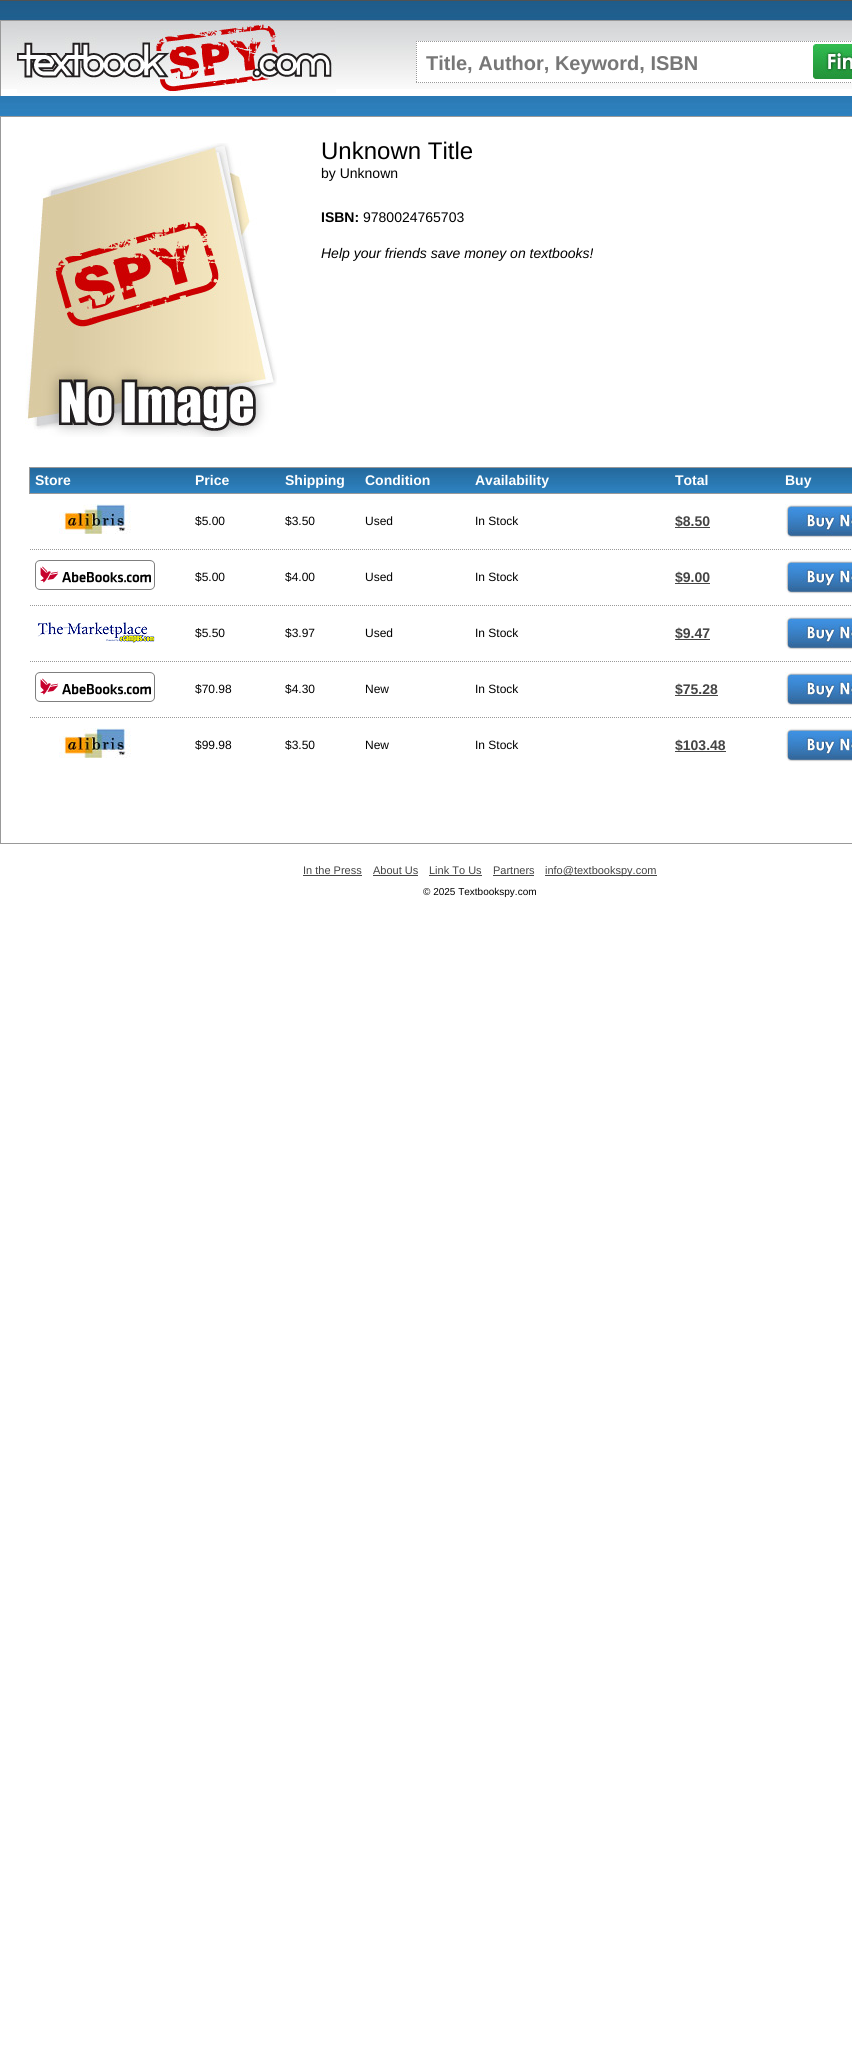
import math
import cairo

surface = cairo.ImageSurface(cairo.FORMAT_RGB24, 852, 2063)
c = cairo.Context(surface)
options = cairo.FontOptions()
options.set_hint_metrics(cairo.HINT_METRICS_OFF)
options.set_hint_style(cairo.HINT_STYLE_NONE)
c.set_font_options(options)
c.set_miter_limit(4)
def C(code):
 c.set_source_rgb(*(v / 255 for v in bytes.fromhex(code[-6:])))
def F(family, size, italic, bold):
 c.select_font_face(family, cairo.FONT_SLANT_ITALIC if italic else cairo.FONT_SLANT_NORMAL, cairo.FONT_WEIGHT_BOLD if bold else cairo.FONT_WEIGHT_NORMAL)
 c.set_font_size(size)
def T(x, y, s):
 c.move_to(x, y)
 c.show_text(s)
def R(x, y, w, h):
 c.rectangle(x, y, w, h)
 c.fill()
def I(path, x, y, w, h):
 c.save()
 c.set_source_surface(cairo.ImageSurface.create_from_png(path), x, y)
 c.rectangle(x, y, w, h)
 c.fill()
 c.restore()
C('ffffff')
c.paint()
I('1.png',0,0,852,116)
C('ffffff')
R(1,89,851,7)
I('2.png',1,21,851,68)
C('999999')
R(0,20,852,1)
R(0,20,1,76)
I('3.png',17,21,319,72)
C('ffffff')
R(416,41,436,42)
c.new_path()
c.move_to(416,41.5)
c.line_to(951,41.5)
C('999999')
c.set_line_width(1)
c.set_dash([1,1])
c.stroke()
c.new_path()
c.move_to(416,82.5)
c.line_to(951,82.5)
c.stroke()
c.new_path()
c.move_to(416.5,41)
c.line_to(416.5,83)
c.stroke()
F('Liberation Sans',20,0,1)
C('777777')
T(426,70,'Title, Author, Keyword, ISBN')
I('4.png',813,44,39,35)
c.rectangle(.5,116.5,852,727)
C('999999')
c.set_dash([])
c.stroke()
I('5.png',25,143,252,294)
F('Liberation Sans',24,0,0)
C('000000')
T(321,159,'Unknown Title')
F('Liberation Sans',14,0,0)
T(321,178,'by Unknown')
F('Liberation Sans',14,0,1)
T(321,222,'ISBN:')
F('Liberation Sans',14,0,0)
T(363,222,'9780024765703')
F('Liberation Sans',14,1,0)
T(321,258,'Help your friends save money on textbooks!')
I('6.png',30,468,822,25)
c.rectangle(29.5,467.5,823,26)
C('999999')
c.stroke()
F('Liberation Sans',14,0,1)
C('ffffff')
T(35,485,'Store')
T(195,485,'Price')
T(285,485,'Shipping')
T(365,485,'Condition')
T(475,485,'Availability')
T(675,485,'Total')
T(785,485,'Buy')
c.new_path()
c.move_to(30,549.5)
c.line_to(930,549.5)
C('999999')
c.set_dash([1,1])
c.stroke()
I('7.png',59,504,72,30)
F('Liberation Sans',12,0,0)
C('000000')
T(195,525,'$5.00')
T(285,525,'$3.50')
T(365,525,'Used')
T(475,525,'In Stock')
C('444444')
R(675,527,35,1)
F('Liberation Sans',14,0,1)
T(675,526,'$8.50')
I('8.png',785,504,67,34)
c.new_path()
c.move_to(30,605.5)
c.line_to(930,605.5)
C('999999')
c.stroke()
I('9.png',35,560,120,30)
F('Liberation Sans',12,0,0)
C('000000')
T(195,581,'$5.00')
T(285,581,'$4.00')
T(365,581,'Used')
T(475,581,'In Stock')
C('444444')
R(675,583,35,1)
F('Liberation Sans',14,0,1)
T(675,582,'$9.00')
I('8.png',785,560,67,34)
c.new_path()
c.move_to(30,661.5)
c.line_to(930,661.5)
C('999999')
c.stroke()
I('10.png',37,621,118,22)
F('Liberation Sans',12,0,0)
C('000000')
T(195,637,'$5.50')
T(285,637,'$3.97')
T(365,637,'Used')
T(475,637,'In Stock')
C('444444')
R(675,639,35,1)
F('Liberation Sans',14,0,1)
T(675,638,'$9.47')
I('8.png',785,616,67,34)
c.new_path()
c.move_to(30,717.5)
c.line_to(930,717.5)
C('999999')
c.stroke()
I('9.png',35,672,120,30)
F('Liberation Sans',12,0,0)
C('000000')
T(195,693,'$70.98')
T(285,693,'$4.30')
T(365,693,'New')
T(475,693,'In Stock')
C('444444')
R(675,695,43,1)
F('Liberation Sans',14,0,1)
T(675,694,'$75.28')
I('8.png',785,672,67,34)
I('7.png',59,728,72,30)
F('Liberation Sans',12,0,0)
C('000000')
T(195,749,'$99.98')
T(285,749,'$3.50')
T(365,749,'New')
T(475,749,'In Stock')
C('444444')
R(675,751,51,1)
F('Liberation Sans',14,0,1)
T(675,750,'$103.48')
I('8.png',785,728,67,34)
F('Liberation Sans',11,0,0)
T(303,874,'In the Press')
R(303,875,59,1)
T(373,874,'About Us')
R(373,875,45,1)
T(429,874,'Link To Us')
R(429,875,53,1)
T(493,874,'Partners')
R(493,875,41,1)
R(545,875,112,1)
T(545,874,'info@textbookspy.com')
F('Liberation Sans',10,0,0)
C('000000')
T(423,895,'© 2025 Textbookspy.com')
surface.write_to_png('o.png')
